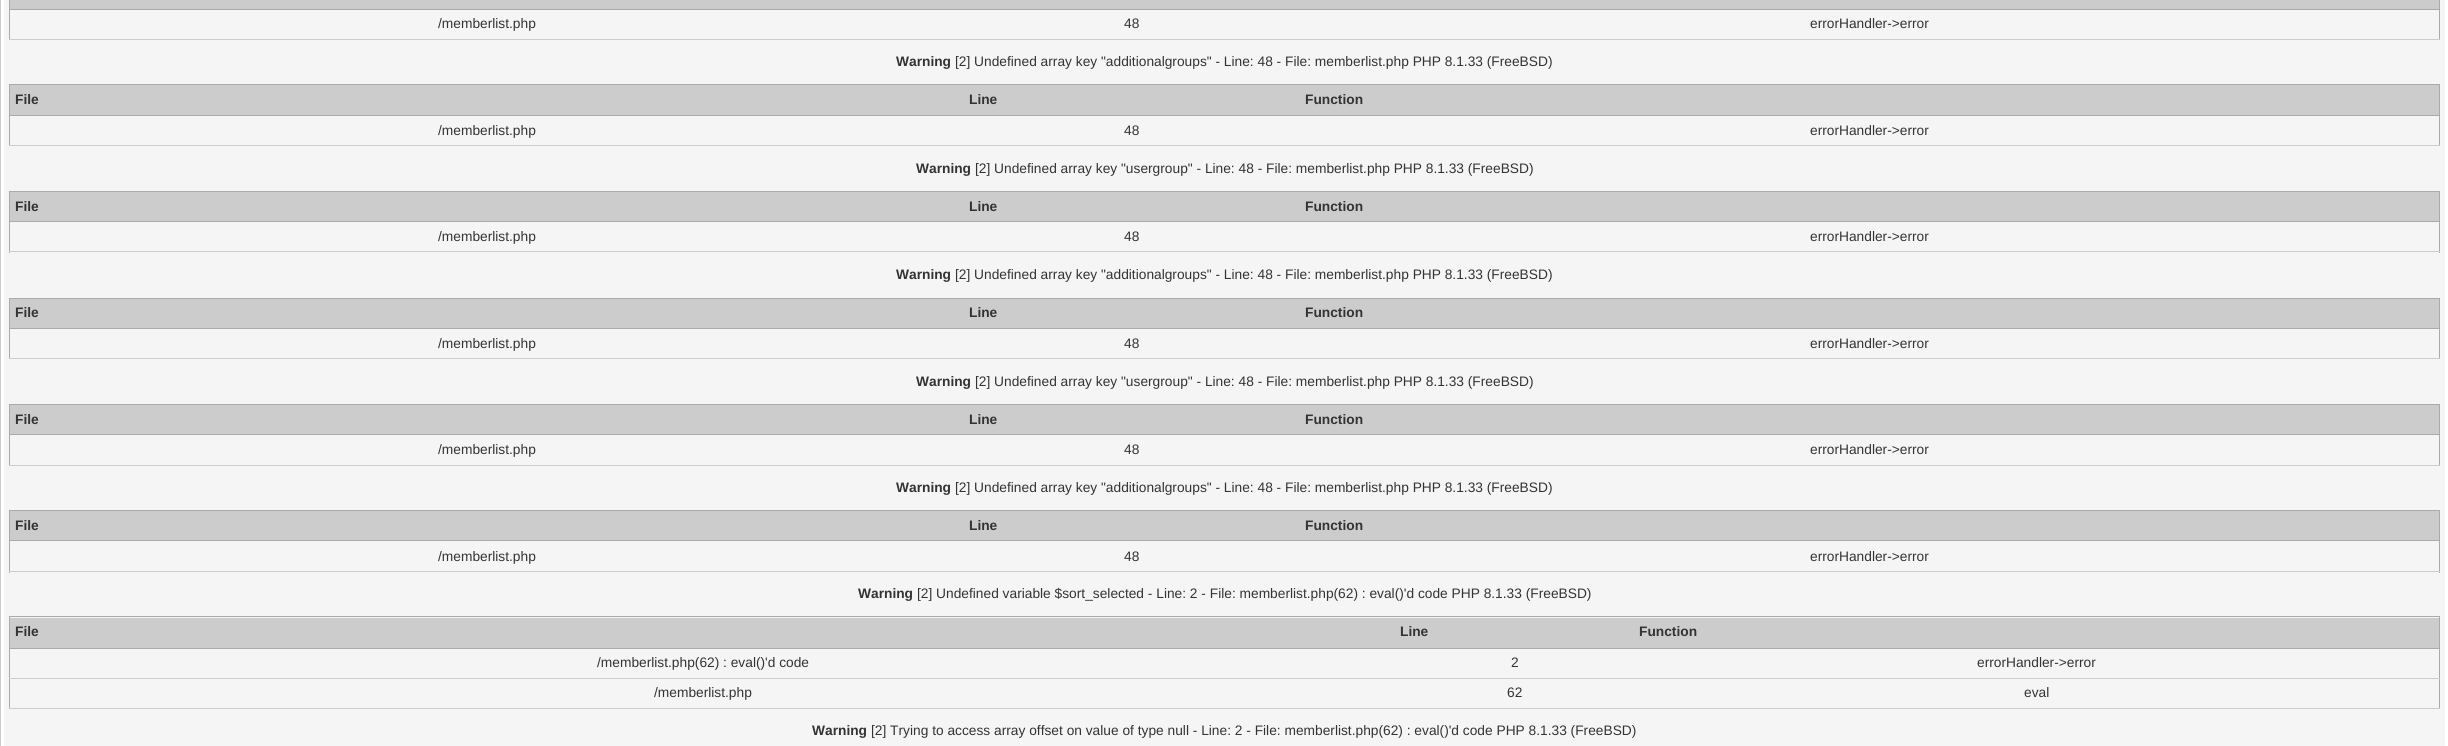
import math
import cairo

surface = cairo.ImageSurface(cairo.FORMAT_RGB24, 2448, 746)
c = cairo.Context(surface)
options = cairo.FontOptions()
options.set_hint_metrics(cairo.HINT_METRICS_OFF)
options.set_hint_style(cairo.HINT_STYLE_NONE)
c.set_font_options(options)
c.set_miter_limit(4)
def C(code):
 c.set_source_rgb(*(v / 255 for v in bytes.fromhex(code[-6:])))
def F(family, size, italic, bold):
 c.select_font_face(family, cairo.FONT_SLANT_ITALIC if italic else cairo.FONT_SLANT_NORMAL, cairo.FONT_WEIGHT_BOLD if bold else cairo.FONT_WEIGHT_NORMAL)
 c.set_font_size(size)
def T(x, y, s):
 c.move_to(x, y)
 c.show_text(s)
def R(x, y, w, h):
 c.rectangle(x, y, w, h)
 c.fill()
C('ffffff')
c.paint()
c.rectangle(.5,-.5,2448,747)
C('cccccc')
c.set_line_width(1)
c.stroke()
C('f5f5f5')
R(4,0,2441,746)
C('aaaaaa')
R(2439,0,1,40)
R(9,0,1,40)
C('cccccc')
R(10,0,2429,9)
C('aaaaaa')
R(9,9,2431,1)
F('Liberation Sans',13.75,0,0)
C('333333')
T(438,28,'/memberlist.php')
T(1124,28,'48')
C('cccccc')
R(9,39,2431,1)
C('333333')
T(1810,28,'errorHandler->error')
F('Liberation Sans',13.75,0,1)
T(896,66,'Warning')
F('Liberation Sans',13.75,0,0)
T(955,66,'[2] Undefined array key "additionalgroups" - Line: 48 - File: memberlist.php PHP 8.1.33 (FreeBSD)')
C('aaaaaa')
R(9,84,2431,1)
R(2439,84,1,62)
R(9,84,1,62)
C('cccccc')
R(10,85,2429,30)
F('Liberation Sans',13.75,0,1)
C('333333')
T(15,104,'File')
T(969,104,'Line')
C('aaaaaa')
R(9,115,2431,1)
C('333333')
T(1305,104,'Function')
F('Liberation Sans',13.75,0,0)
T(438,135,'/memberlist.php')
T(1124,135,'48')
C('cccccc')
R(9,145,2431,1)
C('333333')
T(1810,135,'errorHandler->error')
F('Liberation Sans',13.75,0,1)
T(916,173,'Warning')
F('Liberation Sans',13.75,0,0)
T(975,173,'[2] Undefined array key "usergroup" - Line: 48 - File: memberlist.php PHP 8.1.33 (FreeBSD)')
C('aaaaaa')
R(9,191,2431,1)
R(2439,191,1,62)
R(9,191,1,62)
C('cccccc')
R(10,192,2429,29)
F('Liberation Sans',13.75,0,1)
C('333333')
T(15,211,'File')
T(969,211,'Line')
C('aaaaaa')
R(9,221,2431,1)
C('333333')
T(1305,211,'Function')
F('Liberation Sans',13.75,0,0)
T(438,241,'/memberlist.php')
T(1124,241,'48')
C('cccccc')
R(9,251,2431,1)
C('333333')
T(1810,241,'errorHandler->error')
F('Liberation Sans',13.75,0,1)
T(896,279,'Warning')
F('Liberation Sans',13.75,0,0)
T(955,279,'[2] Undefined array key "additionalgroups" - Line: 48 - File: memberlist.php PHP 8.1.33 (FreeBSD)')
C('aaaaaa')
R(9,298,2431,1)
R(2439,298,1,61)
R(9,298,1,61)
C('cccccc')
R(10,299,2429,29)
F('Liberation Sans',13.75,0,1)
C('333333')
T(15,317,'File')
T(969,317,'Line')
C('aaaaaa')
R(9,328,2431,1)
C('333333')
T(1305,317,'Function')
F('Liberation Sans',13.75,0,0)
T(438,348,'/memberlist.php')
T(1124,348,'48')
C('cccccc')
R(9,358,2431,1)
C('333333')
T(1810,348,'errorHandler->error')
F('Liberation Sans',13.75,0,1)
T(916,386,'Warning')
F('Liberation Sans',13.75,0,0)
T(975,386,'[2] Undefined array key "usergroup" - Line: 48 - File: memberlist.php PHP 8.1.33 (FreeBSD)')
C('aaaaaa')
R(9,404,2431,1)
R(2439,404,1,62)
R(9,404,1,62)
C('cccccc')
R(10,405,2429,29)
F('Liberation Sans',13.75,0,1)
C('333333')
T(15,424,'File')
T(969,424,'Line')
C('aaaaaa')
R(9,434,2431,1)
C('333333')
T(1305,424,'Function')
F('Liberation Sans',13.75,0,0)
T(438,454,'/memberlist.php')
T(1124,454,'48')
C('cccccc')
R(9,465,2431,1)
C('333333')
T(1810,454,'errorHandler->error')
F('Liberation Sans',13.75,0,1)
T(896,492,'Warning')
F('Liberation Sans',13.75,0,0)
T(955,492,'[2] Undefined array key "additionalgroups" - Line: 48 - File: memberlist.php PHP 8.1.33 (FreeBSD)')
C('aaaaaa')
R(9,510,2431,1)
R(2439,510,1,63)
R(9,510,1,63)
C('cccccc')
R(10,511,2429,29)
F('Liberation Sans',13.75,0,1)
C('333333')
T(15,530,'File')
T(969,530,'Line')
C('aaaaaa')
R(9,540,2431,1)
C('333333')
T(1305,530,'Function')
F('Liberation Sans',13.75,0,0)
T(438,561,'/memberlist.php')
T(1124,561,'48')
C('cccccc')
R(9,571,2431,1)
C('333333')
T(1810,561,'errorHandler->error')
F('Liberation Sans',13.75,0,1)
T(858,598,'Warning')
F('Liberation Sans',13.75,0,0)
T(917,598,'[2] Undefined variable $sort_selected - Line: 2 - File: memberlist.php(62) : eval()\'d code PHP 8.1.33 (FreeBSD)')
C('aaaaaa')
R(9,616,2431,1)
R(2439,616,1,93)
R(9,616,1,93)
C('cccccc')
R(10,618,2429,30)
F('Liberation Sans',13.75,0,1)
C('333333')
T(15,636,'File')
T(1400,636,'Line')
C('aaaaaa')
R(9,648,2431,1)
C('333333')
T(1639,636,'Function')
F('Liberation Sans',13.75,0,0)
T(597,667,'/memberlist.php(62) : eval()\'d code')
T(1511,667,'2')
C('cccccc')
R(9,678,2431,1)
C('333333')
T(1977,667,'errorHandler->error')
T(654,697,'/memberlist.php')
T(1507,697,'62')
C('cccccc')
R(9,708,2431,1)
C('333333')
T(2024,697,'eval')
F('Liberation Sans',13.75,0,1)
T(812,735,'Warning')
F('Liberation Sans',13.75,0,0)
T(871,735,'[2] Trying to access array offset on value of type null - Line: 2 - File: memberlist.php(62) : eval()\'d code PHP 8.1.33 (FreeBSD)')
surface.write_to_png('o.png')
